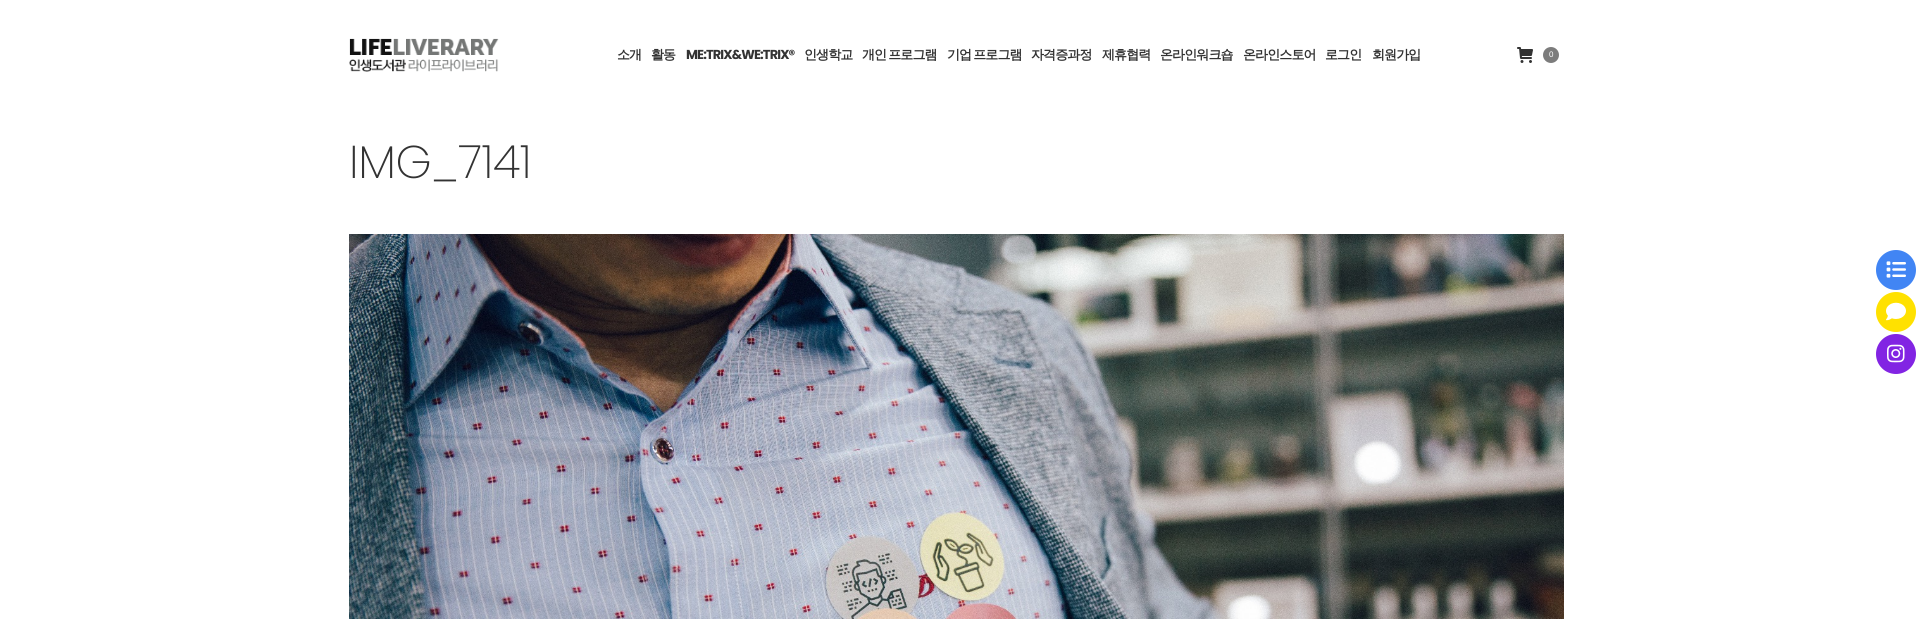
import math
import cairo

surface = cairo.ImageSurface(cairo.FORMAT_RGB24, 1918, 619)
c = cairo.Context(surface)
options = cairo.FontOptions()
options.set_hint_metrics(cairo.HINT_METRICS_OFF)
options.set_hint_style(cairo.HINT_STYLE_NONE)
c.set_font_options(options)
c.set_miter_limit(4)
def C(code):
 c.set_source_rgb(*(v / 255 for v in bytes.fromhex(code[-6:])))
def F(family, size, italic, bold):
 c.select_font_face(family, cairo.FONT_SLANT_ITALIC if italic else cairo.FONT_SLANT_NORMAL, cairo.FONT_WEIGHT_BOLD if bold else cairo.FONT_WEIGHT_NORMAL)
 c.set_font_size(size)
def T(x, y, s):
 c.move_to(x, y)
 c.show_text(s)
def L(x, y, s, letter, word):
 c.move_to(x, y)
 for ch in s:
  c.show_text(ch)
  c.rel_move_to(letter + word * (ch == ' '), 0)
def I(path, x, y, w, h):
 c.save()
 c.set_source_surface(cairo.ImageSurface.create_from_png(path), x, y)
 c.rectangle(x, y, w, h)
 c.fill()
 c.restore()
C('ffffff')
c.paint()
I('1.png',349,38,150,34)
F('WenQuanYi Zen Hei',13,0,1)
C('333333')
L(617,59,'소개',-.9,0)
L(651,59,'활동',-.9,0)
F('Poppins',13,0,1)
L(686,59,'ME:TRIX&WE:TRIX®',-.9,0)
F('WenQuanYi Zen Hei',13,0,1)
L(804,59,'인생학교',-.9,0)
L(862,59,'개인 프로그램',-.9,-1)
L(947,59,'기업 프로그램',-.9,-1)
L(1031,59,'자격증과정',-.9,0)
L(1102,59,'제휴협력',-.9,0)
L(1160,59,'온라인워크숍',-.9,0)
L(1243,59,'온라인스토어',-.9,0)
L(1325,59,'로그인',-.9,0)
L(1372,59,'회원가입',-.9,0)
I('2.png',1517,47,16,16)
C('7c7c7c')
c.arc(1551,55,8,0,2 * math.pi)
c.fill()
F('Liberation Sans',8,0,0)
C('ffffff')
T(1549,57,'0')
F('Poppins ExtraLight',46,0,0)
C('333333')
L(349,178,'IMG_7141',-.5,0)
I('3.png',349,234,1215,385)
C('4185f4')
c.arc(1896,270,20,0,2 * math.pi)
c.fill()
I('4.png',1886,261,20,17)
C('ffe100')
c.arc(1896,312,20,0,2 * math.pi)
c.fill()
I('5.png',1886,302,20,19)
C('8224e3')
c.arc(1896,354,20,0,2 * math.pi)
c.fill()
I('6.png',1887,344,18,19)
surface.write_to_png('o.png')
